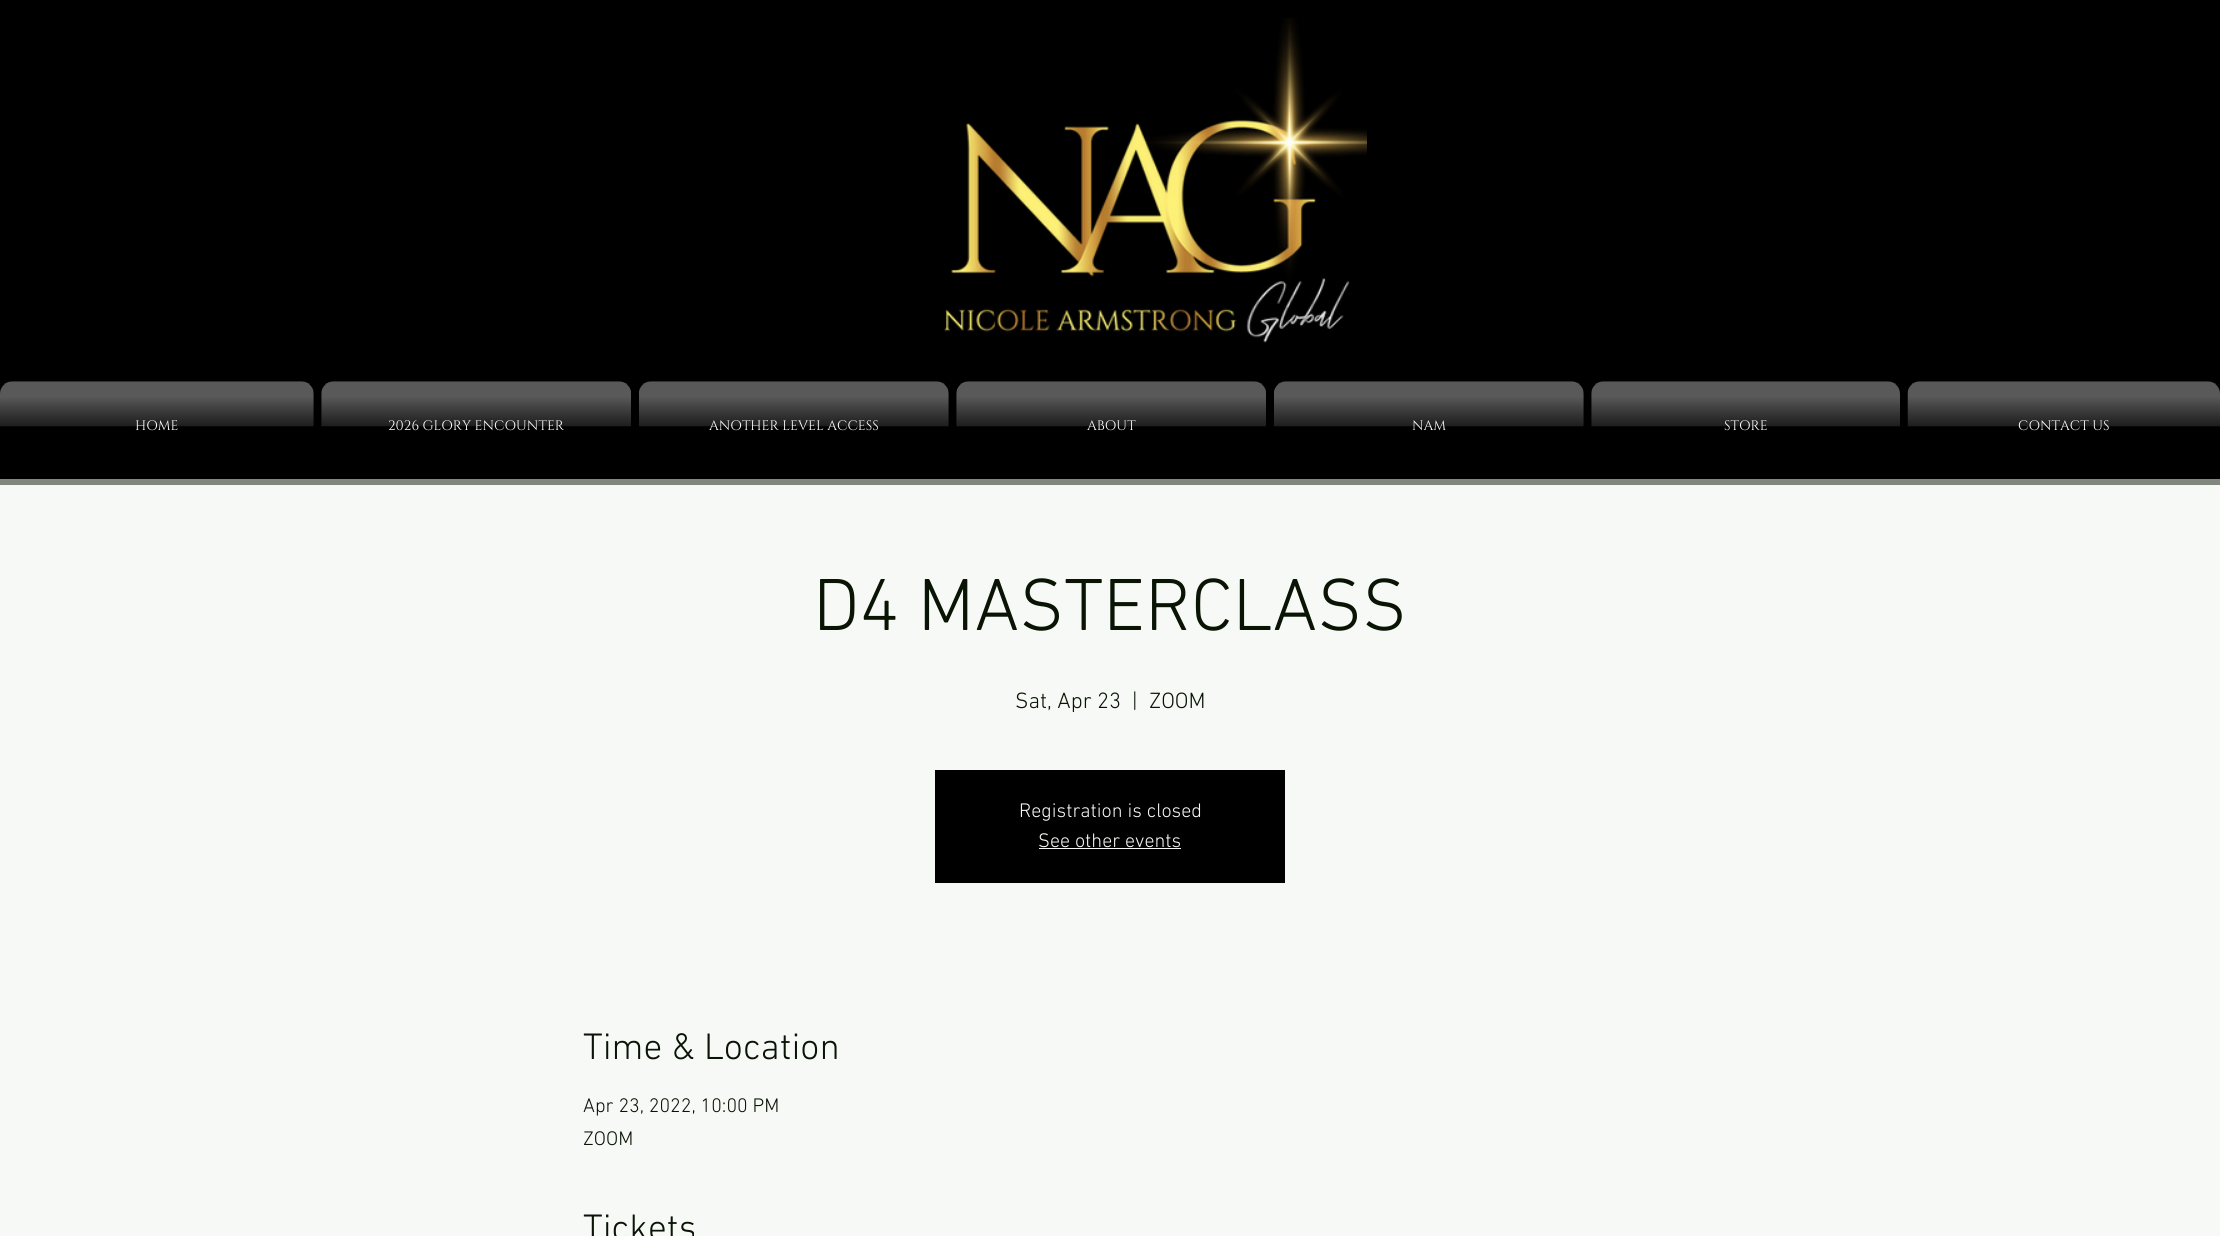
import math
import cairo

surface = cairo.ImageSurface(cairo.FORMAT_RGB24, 2220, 1236)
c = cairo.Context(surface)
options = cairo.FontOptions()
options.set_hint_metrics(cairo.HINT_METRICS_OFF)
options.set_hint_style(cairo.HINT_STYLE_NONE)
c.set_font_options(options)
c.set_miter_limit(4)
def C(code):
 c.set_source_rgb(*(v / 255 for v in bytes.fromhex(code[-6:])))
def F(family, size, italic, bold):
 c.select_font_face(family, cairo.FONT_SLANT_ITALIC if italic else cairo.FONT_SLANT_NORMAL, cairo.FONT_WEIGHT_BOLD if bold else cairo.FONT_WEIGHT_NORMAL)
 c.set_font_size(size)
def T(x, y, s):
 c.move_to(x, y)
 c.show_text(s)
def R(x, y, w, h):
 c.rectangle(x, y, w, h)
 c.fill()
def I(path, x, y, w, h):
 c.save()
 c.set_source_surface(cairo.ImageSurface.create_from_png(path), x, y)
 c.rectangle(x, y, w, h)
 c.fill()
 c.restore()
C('80877d')
c.paint()
C('000000')
R(0,0,2220,479)
I('1.png',944,18,423,325)
I('2.png',0,381,314,46)
F('Cinzel',13.75,0,0)
C('ffffff')
T(135,430,'HOME')
I('3.png',321,381,310,46)
T(388,430,'2026 GLORY ENCOUNTER')
I('4.png',639,381,310,46)
T(709,430,'ANOTHER LEVEL ACCESS')
I('3.png',956,381,310,46)
T(1087,430,'ABOUT')
I('4.png',1274,381,310,46)
T(1412,430,'NAM')
I('5.png',1591,381,309,46)
T(1724,430,'STORE')
I('6.png',1907,381,313,46)
T(2018,430,'CONTACT US')
C('f6f9f5')
R(0,485,2220,751)
F('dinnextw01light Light',75,0,0)
C('091405')
T(813,630,'D4 MASTERCLASS')
F('dinnextw01light Light',22.5,0,0)
T(1015,708,'Sat, Apr 23')
T(1132,708,'|')
T(1149,708,'ZOOM')
C('000000')
R(935,770,350,113)
F('dinnextw01light Light',20,0,0)
C('f6f9f5')
T(1019,817,'Registration is closed')
T(1038,847,'See other events')
R(1039,848,142,1)
F('dinnextw01light Light',37.5,0,0)
C('091405')
T(583,1059,'Time & Location')
F('dinnextw01light Light',20,0,0)
T(583,1112,'Apr 23, 2022, 10:00 PM')
T(583,1145,'ZOOM')
F('dinnextw01light Light',37.5,0,0)
T(583,1240,'Tickets')
surface.write_to_png('o.png')
